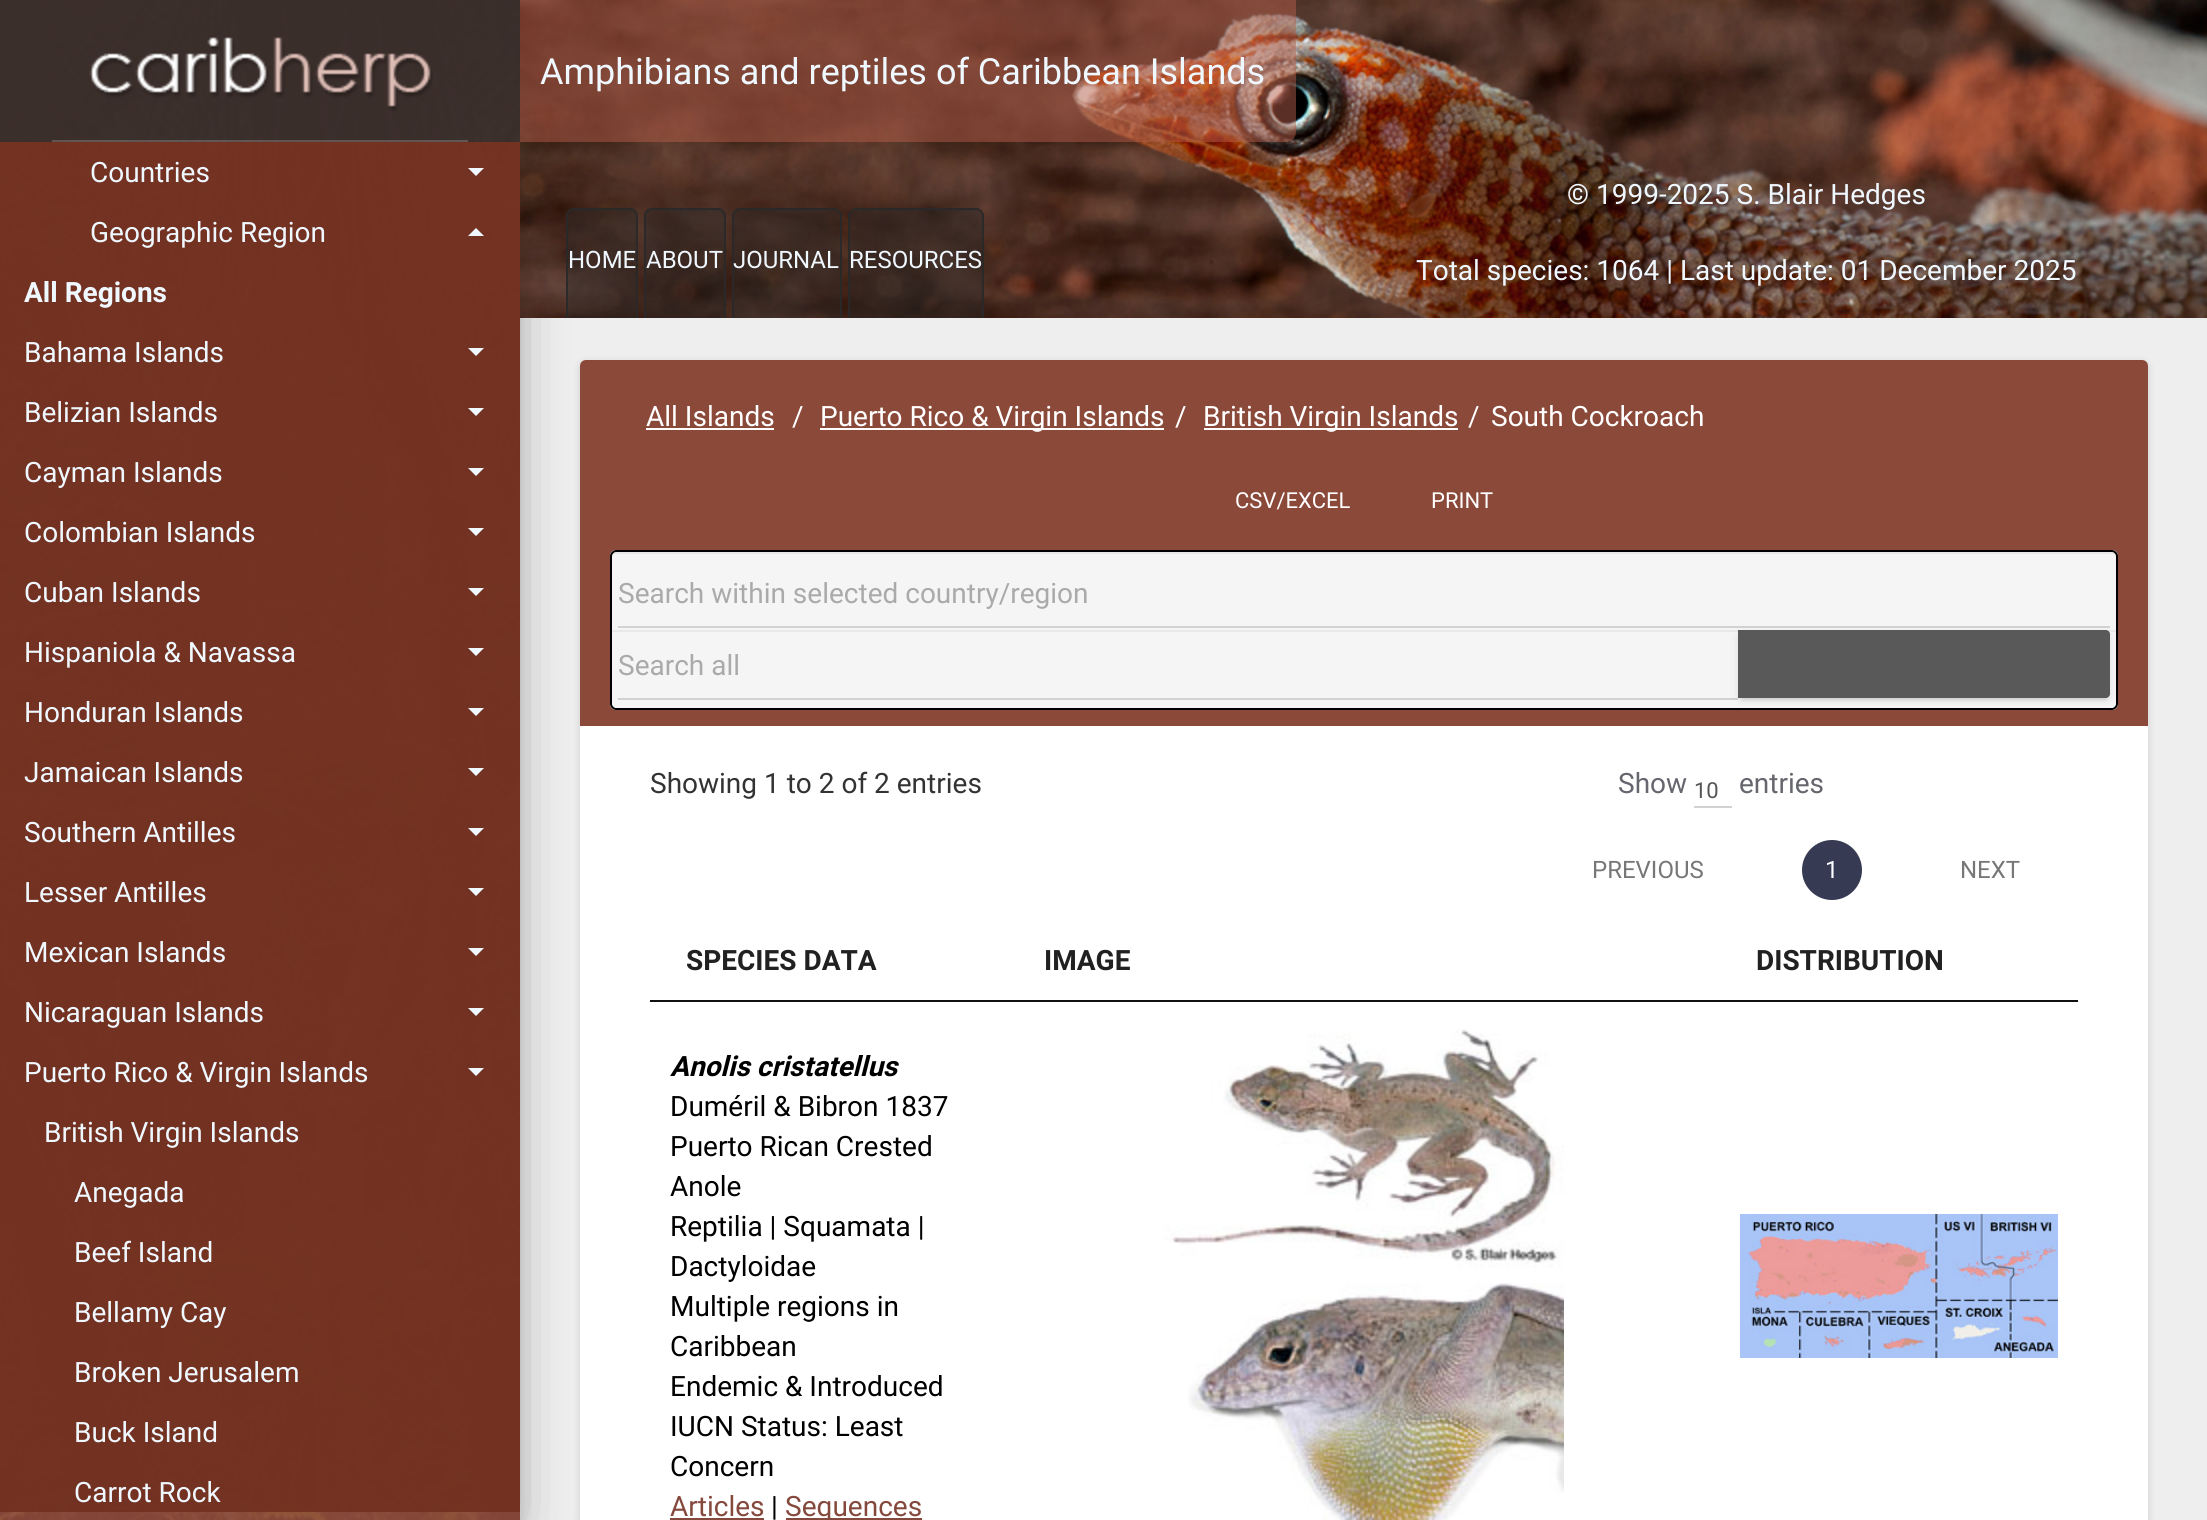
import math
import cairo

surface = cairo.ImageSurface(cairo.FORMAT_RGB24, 2207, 1520)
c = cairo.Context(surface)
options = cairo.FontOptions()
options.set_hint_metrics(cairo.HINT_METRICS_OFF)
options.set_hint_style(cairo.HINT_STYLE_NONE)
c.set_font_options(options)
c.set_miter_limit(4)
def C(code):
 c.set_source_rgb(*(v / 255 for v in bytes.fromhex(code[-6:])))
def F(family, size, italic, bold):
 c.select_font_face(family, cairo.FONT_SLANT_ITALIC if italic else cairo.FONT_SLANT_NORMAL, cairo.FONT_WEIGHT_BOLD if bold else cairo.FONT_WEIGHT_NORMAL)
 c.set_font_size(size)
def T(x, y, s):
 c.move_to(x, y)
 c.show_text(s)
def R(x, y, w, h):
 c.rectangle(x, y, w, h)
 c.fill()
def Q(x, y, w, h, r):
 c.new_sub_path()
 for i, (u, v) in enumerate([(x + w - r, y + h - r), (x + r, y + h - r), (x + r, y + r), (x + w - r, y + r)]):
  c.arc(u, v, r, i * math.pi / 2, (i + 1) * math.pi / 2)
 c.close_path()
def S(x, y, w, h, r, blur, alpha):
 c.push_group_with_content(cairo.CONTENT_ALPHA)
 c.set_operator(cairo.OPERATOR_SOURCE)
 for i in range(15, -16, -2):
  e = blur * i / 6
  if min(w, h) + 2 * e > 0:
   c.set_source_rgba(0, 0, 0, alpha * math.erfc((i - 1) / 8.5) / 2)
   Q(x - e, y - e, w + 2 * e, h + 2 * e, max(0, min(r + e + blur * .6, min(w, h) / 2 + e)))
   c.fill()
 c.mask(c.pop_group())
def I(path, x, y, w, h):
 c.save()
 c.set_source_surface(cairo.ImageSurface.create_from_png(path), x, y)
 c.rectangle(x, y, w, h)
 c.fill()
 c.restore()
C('eeeeee')
c.paint()
C('000000')
S(10,26,500,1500,0,10,.2)
S(580,362,1568,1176,6,4,.14)
C('ffffff')
c.new_path()
c.move_to(586,360)
c.line_to(2142,360)
c.curve_to(2145.5,360,2148,362.5,2148,366)
c.line_to(2148,1520)
c.line_to(580,1520)
c.line_to(580,366)
c.curve_to(580,362.5,582.5,360,586,360)
c.close_path()
c.fill()
C('8b493a')
c.new_path()
c.move_to(586,360)
c.line_to(2142,360)
c.curve_to(2145.5,360,2148,362.5,2148,366)
c.line_to(2148,726)
c.line_to(580,726)
c.line_to(580,366)
c.curve_to(580,362.5,582.5,360,586,360)
c.close_path()
c.fill()
C('000000')
S(0,8,520,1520,0,25,.12)
S(24,44,472,1472,0,30,.42)
I('1.png',0,0,520,1520)
c.set_source_rgba(0.161,0.161,0.161,0.8)
R(0,0,520,142)
I('2.png',89,37,344,74)
c.set_source_rgba(0.706,0.706,0.706,0.3)
R(52,140,416,2)
c.set_source_rgba(0.447,0.188,0.125,0.9)
R(0,142,520,60)
F('Roboto',28,0,0)
C('f0f8ff')
T(90,182,'Countries')
c.new_path()
c.move_to(468,168)
c.line_to(484,168)
c.line_to(476,176)
c.close_path()
c.fill()
c.set_source_rgba(0.447,0.188,0.125,0.9)
R(0,202,520,1310)
C('f0f8ff')
T(90,242,'Geographic Region')
c.new_path()
c.move_to(484,236)
c.line_to(468,236)
c.line_to(476,228)
c.close_path()
c.fill()
F('Roboto',28,0,1)
T(24,302,'All Regions')
F('Roboto',28,0,0)
T(24,362,'Bahama Islands')
c.new_path()
c.move_to(468,348)
c.line_to(484,348)
c.line_to(476,356)
c.close_path()
c.fill()
T(24,422,'Belizian Islands')
c.new_path()
c.move_to(468,408)
c.line_to(484,408)
c.line_to(476,416)
c.close_path()
c.fill()
T(24,482,'Cayman Islands')
c.new_path()
c.move_to(468,468)
c.line_to(484,468)
c.line_to(476,476)
c.close_path()
c.fill()
T(24,542,'Colombian Islands')
c.new_path()
c.move_to(468,528)
c.line_to(484,528)
c.line_to(476,536)
c.close_path()
c.fill()
T(24,602,'Cuban Islands')
c.new_path()
c.move_to(468,588)
c.line_to(484,588)
c.line_to(476,596)
c.close_path()
c.fill()
T(24,662,'Hispaniola & Navassa')
c.new_path()
c.move_to(468,648)
c.line_to(484,648)
c.line_to(476,656)
c.close_path()
c.fill()
T(24,722,'Honduran Islands')
c.new_path()
c.move_to(468,708)
c.line_to(484,708)
c.line_to(476,716)
c.close_path()
c.fill()
T(24,782,'Jamaican Islands')
c.new_path()
c.move_to(468,768)
c.line_to(484,768)
c.line_to(476,776)
c.close_path()
c.fill()
T(24,842,'Southern Antilles')
c.new_path()
c.move_to(468,828)
c.line_to(484,828)
c.line_to(476,836)
c.close_path()
c.fill()
T(24,902,'Lesser Antilles')
c.new_path()
c.move_to(468,888)
c.line_to(484,888)
c.line_to(476,896)
c.close_path()
c.fill()
T(24,962,'Mexican Islands')
c.new_path()
c.move_to(468,948)
c.line_to(484,948)
c.line_to(476,956)
c.close_path()
c.fill()
T(24,1022,'Nicaraguan Islands')
c.new_path()
c.move_to(468,1008)
c.line_to(484,1008)
c.line_to(476,1016)
c.close_path()
c.fill()
T(24,1082,'Puerto Rico & Virgin Islands')
c.new_path()
c.move_to(468,1068)
c.line_to(484,1068)
c.line_to(476,1076)
c.close_path()
c.fill()
T(44,1142,'British Virgin Islands')
T(74,1202,'Anegada')
T(74,1262,'Beef Island')
T(74,1322,'Bellamy Cay')
T(74,1382,'Broken Jerusalem')
T(74,1442,'Buck Island')
T(74,1502,'Carrot Rock')
I('3.png',520,0,1687,318)
c.set_source_rgba(0.71,0.369,0.29,0.5)
c.new_path()
c.move_to(520,0)
c.line_to(1296,0)
c.line_to(1296,132)
c.curve_to(1296,137.5,1291.5,142,1286,142)
c.line_to(520,142)
c.close_path()
c.fill()
F('Roboto',36,0,0)
C('f0f8ff')
T(540,84,'Amphibians and reptiles of Caribbean Islands')
c.set_source_rgba(0.161,0.161,0.161,0.4)
c.new_path()
c.move_to(574,208)
c.line_to(630,208)
c.curve_to(634.5,208,638,211.5,638,216)
c.line_to(638,318)
c.line_to(566,318)
c.line_to(566,216)
c.curve_to(566,211.5,569.5,208,574,208)
c.close_path()
c.fill()
c.set_source_rgba(0.161,0.161,0.161,0.9)
c.set_fill_rule(cairo.FILL_RULE_EVEN_ODD)
c.new_path()
c.move_to(574,208)
c.line_to(630,208)
c.curve_to(634,208,638,212,638,216)
c.line_to(638,318)
c.line_to(566,318)
c.line_to(566,216)
c.curve_to(566,212,570,208,574,208)
c.close_path()
c.move_to(574,210)
c.line_to(630,210)
c.curve_to(633,210,636,213,636,216)
c.line_to(636,318)
c.line_to(568,318)
c.line_to(568,216)
c.curve_to(568,213,571,210,574,210)
c.close_path()
c.fill()
F('Roboto',24,0,0)
C('f0f8ff')
T(568,268,'HOME')
c.set_source_rgba(0.161,0.161,0.161,0.4)
c.new_path()
c.move_to(652,208)
c.line_to(718,208)
c.curve_to(722.5,208,726,211.5,726,216)
c.line_to(726,318)
c.line_to(644,318)
c.line_to(644,216)
c.curve_to(644,211.5,647.5,208,652,208)
c.close_path()
c.fill()
c.set_source_rgba(0.161,0.161,0.161,0.9)
c.new_path()
c.move_to(652,208)
c.line_to(718,208)
c.curve_to(722,208,726,212,726,216)
c.line_to(726,318)
c.line_to(644,318)
c.line_to(644,216)
c.curve_to(644,212,648,208,652,208)
c.close_path()
c.move_to(652,210)
c.line_to(718,210)
c.curve_to(721,210,724,213,724,216)
c.line_to(724,318)
c.line_to(646,318)
c.line_to(646,216)
c.curve_to(646,213,649,210,652,210)
c.close_path()
c.fill()
C('f0f8ff')
T(646,268,'ABOUT')
c.set_source_rgba(0.161,0.161,0.161,0.4)
c.new_path()
c.move_to(740,208)
c.line_to(834,208)
c.curve_to(838.5,208,842,211.5,842,216)
c.line_to(842,318)
c.line_to(732,318)
c.line_to(732,216)
c.curve_to(732,211.5,735.5,208,740,208)
c.close_path()
c.fill()
c.set_source_rgba(0.161,0.161,0.161,0.9)
c.new_path()
c.move_to(740,208)
c.line_to(834,208)
c.curve_to(838,208,842,212,842,216)
c.line_to(842,318)
c.line_to(732,318)
c.line_to(732,216)
c.curve_to(732,212,736,208,740,208)
c.close_path()
c.move_to(740,210)
c.line_to(834,210)
c.curve_to(837,210,840,213,840,216)
c.line_to(840,318)
c.line_to(734,318)
c.line_to(734,216)
c.curve_to(734,213,737,210,740,210)
c.close_path()
c.fill()
C('f0f8ff')
T(733,268,'JOURNAL')
c.set_source_rgba(0.161,0.161,0.161,0.4)
c.new_path()
c.move_to(856,208)
c.line_to(976,208)
c.curve_to(980.5,208,984,211.5,984,216)
c.line_to(984,318)
c.line_to(848,318)
c.line_to(848,216)
c.curve_to(848,211.5,851.5,208,856,208)
c.close_path()
c.fill()
c.set_source_rgba(0.161,0.161,0.161,0.9)
c.new_path()
c.move_to(856,208)
c.line_to(976,208)
c.curve_to(980,208,984,212,984,216)
c.line_to(984,318)
c.line_to(848,318)
c.line_to(848,216)
c.curve_to(848,212,852,208,856,208)
c.close_path()
c.move_to(856,210)
c.line_to(976,210)
c.curve_to(979,210,982,213,982,216)
c.line_to(982,318)
c.line_to(850,318)
c.line_to(850,216)
c.curve_to(850,213,853,210,856,210)
c.close_path()
c.fill()
C('f0f8ff')
T(849,268,'RESOURCES')
F('Roboto',28,0,0)
T(1567,204,'© 1999-2025 S. Blair Hedges')
T(1416,280,'Total species: 1064 | Last update: 01 December 2025')
C('ffffff')
T(646,426,'All Islands')
R(646,428,128,2)
T(792,426,'/')
R(820,428,344,2)
T(820,426,'Puerto Rico & Virgin Islands')
T(1175,426,'/')
R(1204,428,254,2)
T(1203,426,'British Virgin Islands')
T(1468,426,'/')
T(1491,426,'South Cockroach')
F('Roboto',22,0,0)
T(1235,508,'CSV/EXCEL')
T(1431,508,'PRINT')
C('f5f5f5')
c.new_path()
c.move_to(616,550)
c.line_to(2112,550)
c.curve_to(2115.5,550,2118,552.5,2118,556)
c.line_to(2118,630)
c.line_to(610,630)
c.line_to(610,556)
c.curve_to(610,552.5,612.5,550,616,550)
c.close_path()
c.fill()
C('e9e9e9')
c.set_fill_rule(cairo.FILL_RULE_WINDING)
c.new_path()
c.move_to(616,554)
c.line_to(2112,554)
c.curve_to(2114,554,2116,556,2116,558)
c.curve_to(2116,555,2116,552,2112,552)
c.line_to(616,552)
c.curve_to(612,552,612,555,612,558)
c.curve_to(612,556,614,554,616,554)
c.close_path()
c.fill()
C('000000')
c.set_fill_rule(cairo.FILL_RULE_EVEN_ODD)
c.new_path()
c.move_to(616,550)
c.line_to(2112,550)
c.curve_to(2115,550,2118,553,2118,556)
c.line_to(2118,630)
c.line_to(610,630)
c.line_to(610,556)
c.curve_to(610,553,613,550,616,550)
c.close_path()
c.move_to(616,552)
c.line_to(2112,552)
c.curve_to(2114,552,2116,554,2116,556)
c.line_to(2116,630)
c.line_to(612,630)
c.line_to(612,556)
c.curve_to(612,554,614,552,616,552)
c.close_path()
c.fill()
C('d2d2d2')
R(618,626,1492,2)
F('Roboto',28,0,0)
C('aaaaaa')
T(618,603,'Search within selected country/region')
C('f5f5f5')
c.new_path()
c.move_to(610,630)
c.line_to(2118,630)
c.line_to(2118,704)
c.curve_to(2118,707.5,2115.5,710,2112,710)
c.line_to(616,710)
c.curve_to(612.5,710,610,707.5,610,704)
c.close_path()
c.fill()
C('e9e9e9')
R(612,630,1504,2)
C('000000')
c.new_path()
c.move_to(610,630)
c.line_to(2118,630)
c.line_to(2118,704)
c.curve_to(2118,707,2115,710,2112,710)
c.line_to(616,710)
c.curve_to(613,710,610,707,610,704)
c.close_path()
c.move_to(612,630)
c.line_to(2116,630)
c.line_to(2116,704)
c.curve_to(2116,706,2114,708,2112,708)
c.line_to(616,708)
c.curve_to(614,708,612,706,612,704)
c.close_path()
c.fill()
C('d2d2d2')
R(618,698,1120,2)
C('aaaaaa')
T(618,675,'Search all')
C('999999')
S(1738,632,372,68,4,5,.12)
S(1742,640,364,60,0,1,.2)
S(1738,634,372,68,4,2,.14)
C('595959')
c.new_path()
c.move_to(1738,630)
c.line_to(2106,630)
c.curve_to(2108,630,2110,632,2110,634)
c.line_to(2110,694)
c.curve_to(2110,696,2108,698,2106,698)
c.line_to(1738,698)
c.close_path()
c.fill()
C('333333')
T(650,793,'Showing 1 to 2 of 2 entries')
C('65666e')
T(1618,793,'Show')
C('d2d2d2')
R(1694,806,38,2)
F('Roboto',22,0,0)
C('555555')
T(1694,798,'10')
F('Roboto',28,0,0)
C('65666e')
T(1739,793,'entries')
F('Roboto',24,0,0)
C('777777')
T(1592,878,'PREVIOUS')
C('363a52')
c.new_path()
c.arc(1832,870,30,0,2 * math.pi)
c.fill()
C('ffffff')
T(1825,878,'1')
C('777777')
T(1960,878,'NEXT')
C('111111')
R(650,1000,1428,2)
F('Roboto',28,0,1)
C('212121')
T(686,970,'SPECIES DATA')
T(1044,970,'IMAGE')
T(1756,970,'DISTRIBUTION')
F('Roboto',28,1,1)
C('000000')
T(670,1076,'Anolis cristatellus')
F('Roboto',28,0,0)
T(670,1116,'Duméril & Bibron 1837')
T(670,1156,'Puerto Rican Crested')
T(670,1196,'Anole')
T(670,1236,'Reptilia | Squamata |')
T(670,1276,'Dactyloidae')
T(670,1316,'Multiple regions in')
T(670,1356,'Caribbean')
T(670,1396,'Endemic & Introduced')
T(670,1436,'IUCN Status: Least')
T(670,1476,'Concern')
C('84493c')
T(670,1516,'Articles')
R(670,1518,94,2)
C('000000')
T(771,1516,'|')
C('84493c')
R(786,1518,136,2)
T(785,1516,'Sequences')
I('4.png',1164,1029,400,239)
I('5.png',1188,1283,376,237)
I('6.png',1740,1214,318,144)
surface.write_to_png('o.png')
